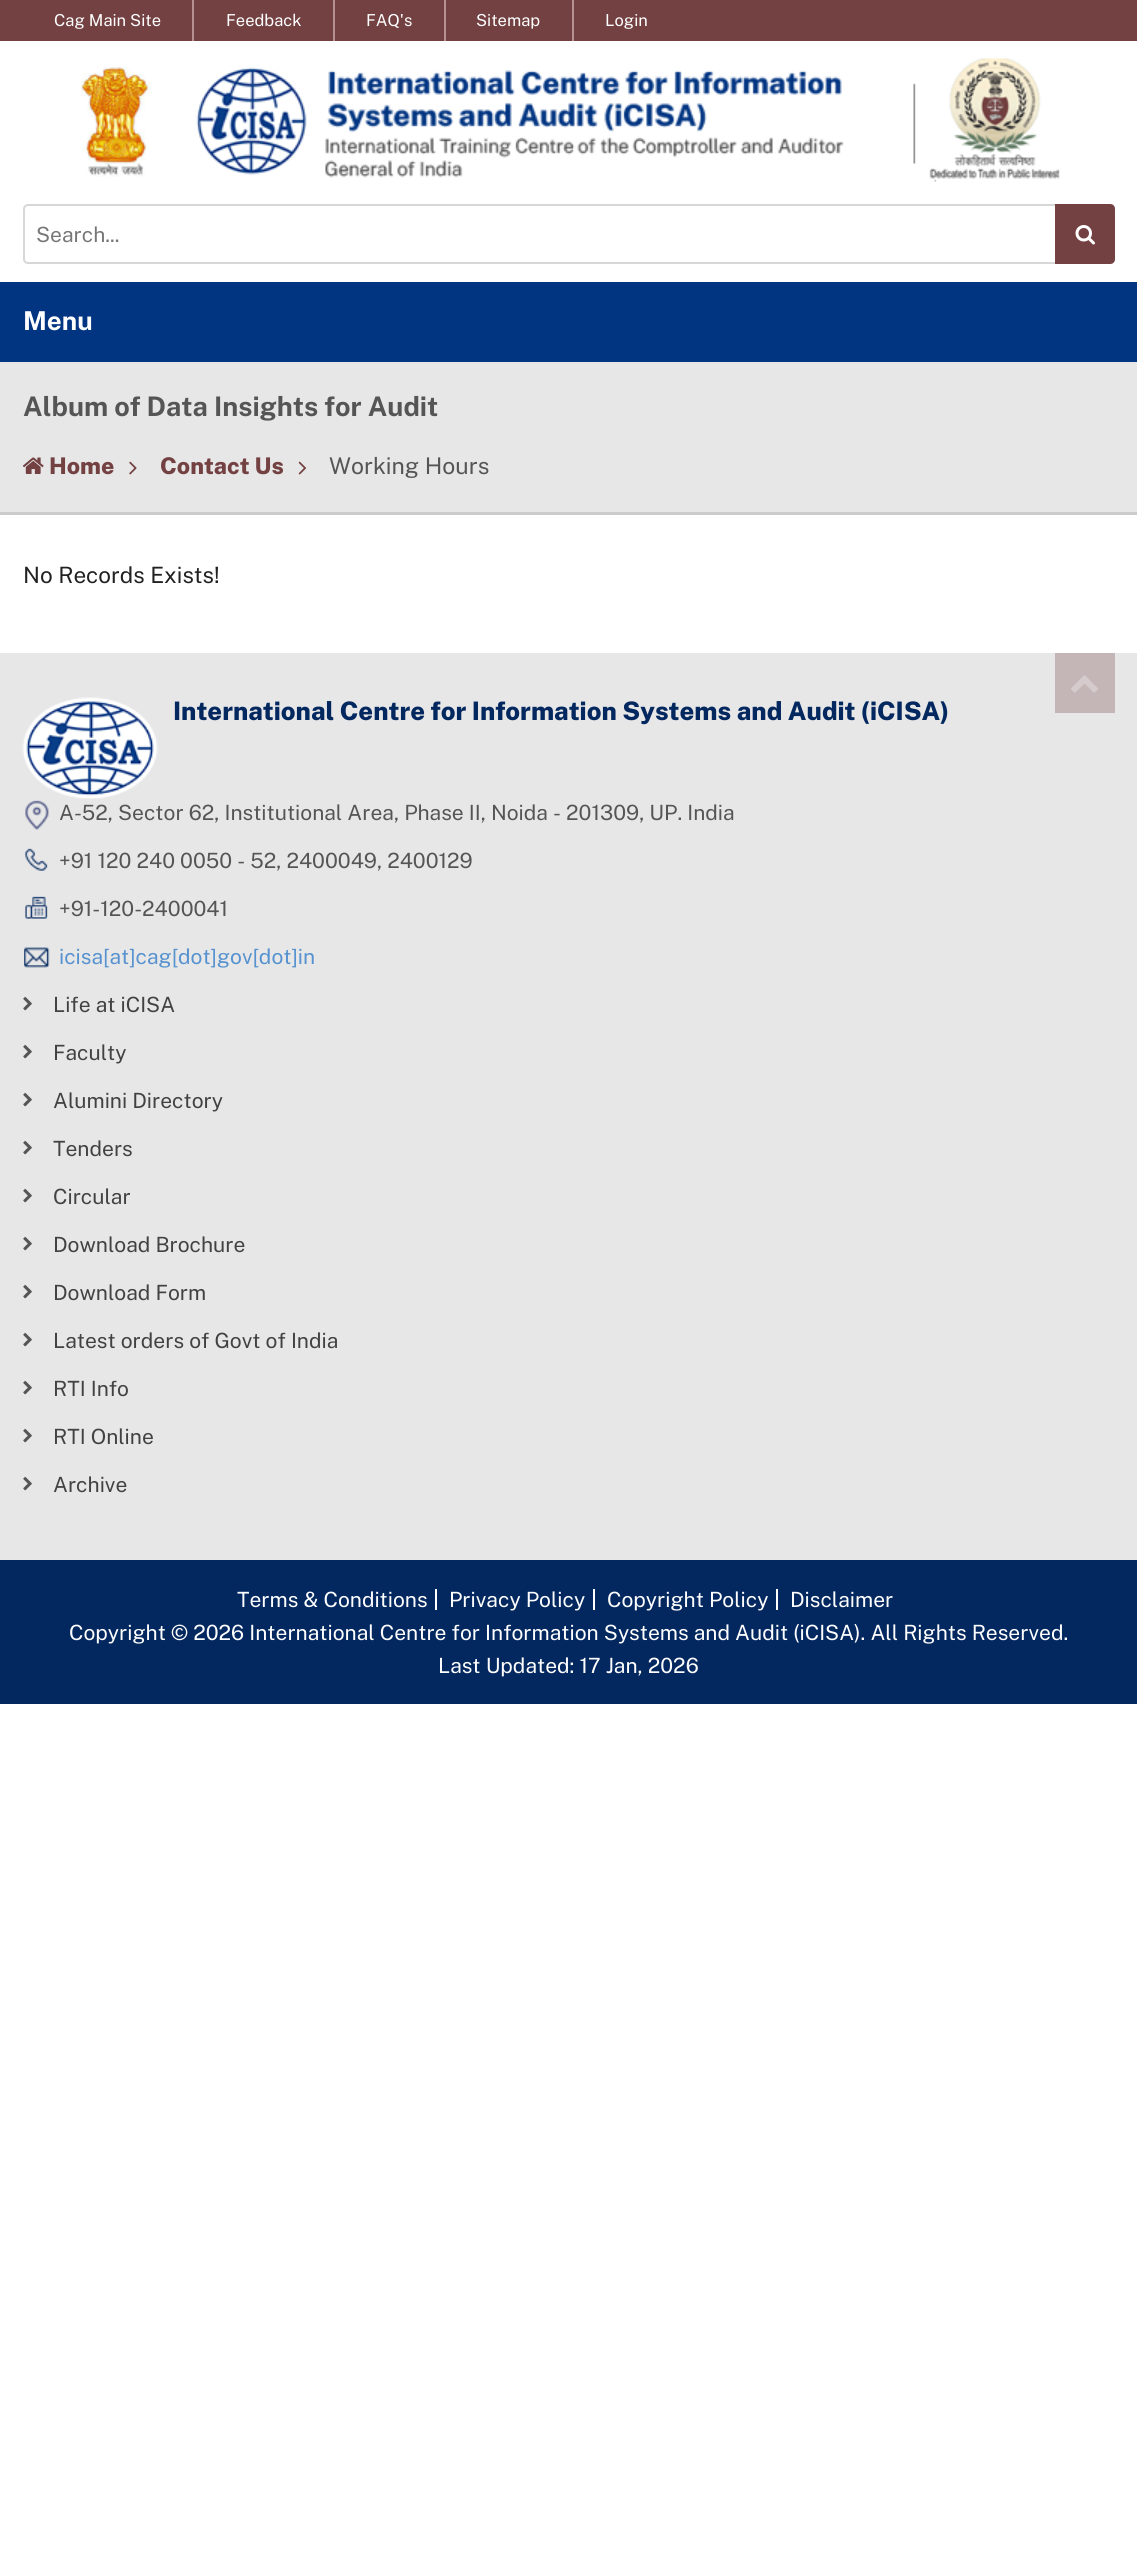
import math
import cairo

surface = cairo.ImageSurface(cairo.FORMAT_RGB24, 1137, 2563)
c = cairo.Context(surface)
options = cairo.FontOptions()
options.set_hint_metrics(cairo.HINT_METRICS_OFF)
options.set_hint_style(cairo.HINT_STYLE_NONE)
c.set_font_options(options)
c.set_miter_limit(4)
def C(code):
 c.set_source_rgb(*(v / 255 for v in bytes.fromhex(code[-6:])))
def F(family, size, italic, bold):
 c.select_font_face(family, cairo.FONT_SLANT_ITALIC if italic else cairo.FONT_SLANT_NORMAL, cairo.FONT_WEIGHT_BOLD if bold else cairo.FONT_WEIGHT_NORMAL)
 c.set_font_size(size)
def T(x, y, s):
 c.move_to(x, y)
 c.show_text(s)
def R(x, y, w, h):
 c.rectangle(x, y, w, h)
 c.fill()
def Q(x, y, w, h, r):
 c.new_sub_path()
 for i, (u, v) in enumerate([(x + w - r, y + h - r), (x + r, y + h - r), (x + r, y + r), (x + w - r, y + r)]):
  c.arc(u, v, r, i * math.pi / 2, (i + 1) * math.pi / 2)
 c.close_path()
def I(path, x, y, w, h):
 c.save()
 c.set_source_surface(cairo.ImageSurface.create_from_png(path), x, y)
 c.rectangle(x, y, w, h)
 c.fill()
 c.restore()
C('ffffff')
c.paint()
C('734142')
R(0,0,1137,41)
C('b69191')
R(192,0,2,41)
F('Public Sans',16.5,0,0)
C('ffffff')
T(54,26,'Cag Main Site')
C('b69191')
R(333,0,2,41)
C('ffffff')
T(226,26,'Feedback')
C('b69191')
R(444,0,2,41)
C('ffffff')
T(366,26,'FAQ\'s')
T(476,26,'Sitemap')
C('b69191')
R(572,0,2,41)
C('ffffff')
T(605,26,'Login')
I('1.png',81,67,72,110)
I('2.png',196,58,864,124)
Q(24,205,1090,58,4)
C('d7d7d7')
c.stroke()
F('Public Sans',21,0,0)
C('777777')
T(36,242,'Search...')
C('734142')
c.new_path()
c.move_to(1055,204)
c.line_to(1110,204)
c.curve_to(1113,204,1115,206,1115,209)
c.line_to(1115,259)
c.curve_to(1115,262,1113,264,1110,264)
c.line_to(1055,264)
c.close_path()
c.fill()
I('3.png',1075,225,20,20)
C('013481')
R(0,282,1137,80)
F('Public Sans',26,0,1)
C('ffffff')
T(23,330,'Menu')
C('e7e7e7')
R(0,362,1137,150)
C('cccccc')
R(0,512,1137,3)
F('Public Sans',27,0,1)
C('555555')
T(23,416,'Album of Data Insights for Audit')
I('4.png',22,457,22,17)
F('Public Sans ExtraBold',23,0,0)
C('734142')
T(49,474,'Home')
I('5.png',129,461,8,14)
T(160,474,'Contact Us')
I('6.png',298,461,9,14)
F('Public Sans',23,0,0)
C('555555')
T(329,474,'Working Hours')
F('Public Sans',22.5,0,0)
C('212121')
T(23,583,'No Records Exists!')
C('e7e7e7')
R(0,653,1137,907)
C('c4b5b6')
R(1055,653,60,60)
I('7.png',1071,675,27,18)
I('8.png',22,697,136,102)
F('Public Sans ExtraBold',25.5,0,0)
C('03285f')
T(173,720,'International Centre for Information Systems and Audit (iCISA)')
I('9.png',25,800,24,30)
F('Public Sans',21,0,0)
C('555555')
T(59,820,'A-52, Sector 62, Institutional Area, Phase II, Noida - 201309, UP. India')
I('10.png',25,848,23,23)
T(59,868,'+91 120 240 0050 - 52, 2400049, 2400129')
I('11.png',25,896,23,23)
T(59,916,'+91-120-2400041')
I('12.png',24,947,26,21)
C('5692d0')
T(59,964,'icisa[at]cag[dot]gov[dot]in')
I('13.png',23,996,9,15)
C('424242')
T(53,1012,'Life at iCISA')
I('13.png',23,1044,9,15)
T(53,1060,'Faculty')
I('13.png',23,1092,9,15)
T(53,1108,'Alumini Directory')
I('13.png',23,1140,9,15)
T(53,1156,'Tenders')
I('13.png',23,1188,9,15)
T(53,1204,'Circular')
I('13.png',23,1236,9,15)
T(53,1252,'Download Brochure')
I('13.png',23,1284,9,15)
T(53,1300,'Download Form')
I('13.png',23,1332,9,15)
T(53,1348,'Latest orders of Govt of India')
I('13.png',23,1380,9,15)
T(53,1396,'RTI Info')
I('13.png',23,1428,9,15)
T(53,1444,'RTI Online')
I('13.png',23,1476,9,15)
T(53,1492,'Archive')
C('03285f')
R(0,1560,1137,144)
C('ffffff')
R(435,1589,2,21)
T(237,1607,'Terms & Conditions')
R(593,1589,2,21)
T(449,1607,'Privacy Policy')
R(776,1589,2,21)
T(607,1607,'Copyright Policy')
T(790,1607,'Disclaimer')
T(69,1640,'Copyright © 2026 International Centre for Information Systems and Audit (iCISA). All Rights Reserved.')
T(438,1673,'Last Updated: 17 Jan, 2026')
surface.write_to_png('o.png')
